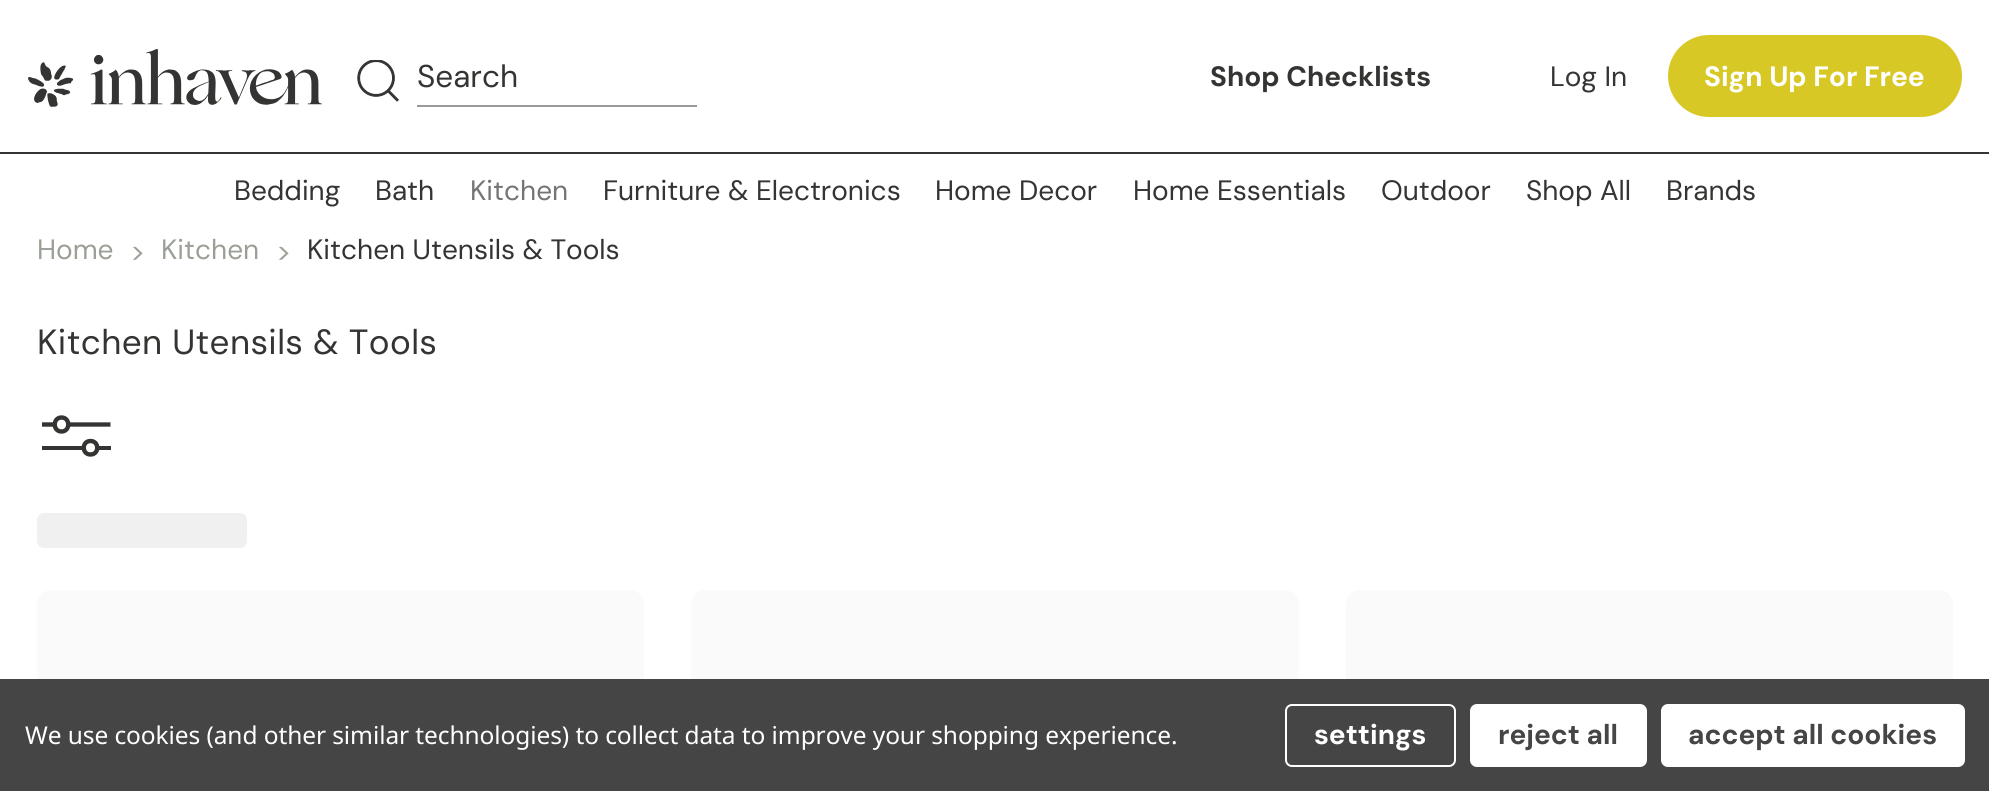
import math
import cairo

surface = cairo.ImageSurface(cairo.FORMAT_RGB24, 1989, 791)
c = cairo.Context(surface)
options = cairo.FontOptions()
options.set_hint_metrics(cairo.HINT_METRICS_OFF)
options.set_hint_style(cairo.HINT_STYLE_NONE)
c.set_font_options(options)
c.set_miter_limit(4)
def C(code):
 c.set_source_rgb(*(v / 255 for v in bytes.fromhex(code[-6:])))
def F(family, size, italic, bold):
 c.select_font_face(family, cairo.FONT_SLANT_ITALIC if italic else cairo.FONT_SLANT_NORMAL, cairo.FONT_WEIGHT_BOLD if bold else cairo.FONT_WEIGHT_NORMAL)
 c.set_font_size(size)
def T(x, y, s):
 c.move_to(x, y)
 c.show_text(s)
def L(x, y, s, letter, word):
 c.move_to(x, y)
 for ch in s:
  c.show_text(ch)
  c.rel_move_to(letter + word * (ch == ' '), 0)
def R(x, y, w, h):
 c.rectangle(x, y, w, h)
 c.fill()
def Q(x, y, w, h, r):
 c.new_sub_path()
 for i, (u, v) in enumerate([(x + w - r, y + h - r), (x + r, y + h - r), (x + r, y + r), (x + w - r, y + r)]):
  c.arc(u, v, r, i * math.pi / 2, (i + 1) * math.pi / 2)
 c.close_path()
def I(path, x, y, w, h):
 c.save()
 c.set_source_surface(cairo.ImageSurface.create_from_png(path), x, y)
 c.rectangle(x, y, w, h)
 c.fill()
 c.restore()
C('ffffff')
c.paint()
I('1.png',28,49,294,58)
I('2.png',357,60,42,42)
C('999999')
R(417,105,280,2)
F('DM Sans',31.5,0,0)
C('343432')
T(417,87,'Search')
F('DM Sans',28,0,1)
T(1210,86,'Shop Checklists')
F('DM Sans',28,0,0)
T(1550,86,'Log In')
C('d8c826')
Q(1669,36,292,80,40)
c.fill_preserve()
c.stroke()
F('DM Sans',28,0,1)
C('ffffff')
T(1704,86,'Sign Up For Free')
C('343432')
R(0,152,1989,2)
F('DM Sans',28,0,0)
T(234,200,'Bedding')
T(375,200,'Bath')
C('757575')
T(470,200,'Kitchen')
C('343432')
T(603,200,'Furniture & Electronics')
T(935,200,'Home Decor')
T(1133,200,'Home Essentials')
T(1381,200,'Outdoor')
T(1526,200,'Shop All')
T(1666,200,'Brands')
C('9ba097')
T(37,259,'Home')
T(130,261,'>')
T(161,259,'Kitchen')
T(276,261,'>')
C('343432')
T(307,259,'Kitchen Utensils & Tools')
F('DM Sans',35,0,0)
L(37,354,'Kitchen Utensils & Tools',.4,0)
c.new_path()
c.move_to(61.5,431.5)
c.curve_to(70.5,431.5,70.5,417.5,61.5,417.5)
c.curve_to(52.5,417.5,52.5,431.5,61.5,431.5)
c.close_path()
c.move_to(90.5,454.5)
c.curve_to(99.5,454.5,99.5,441,90.5,441)
c.curve_to(81.5,441,81.5,454.5,90.5,454.5)
c.close_path()
c.move_to(68.5,424.5)
c.line_to(110.5,424.5)
c.set_line_width(4.4)
c.stroke()
c.new_path()
c.move_to(42,424.5)
c.line_to(54.5,424.5)
c.stroke()
R(42,446,42,4)
R(98,446,13,4)
gradient = cairo.LinearGradient(37,530,877,530)
gradient.add_color_stop_rgba(.25,0.941,0.941,0.941,1)
gradient.add_color_stop_rgba(.37,0.886,0.886,0.886,1)
gradient.add_color_stop_rgba(.63,0.941,0.941,0.941,1)
c.set_source(gradient)
Q(37,513,210,35,7)
c.fill()
C('fafafa')
Q(37,590,607,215,14)
c.fill()
Q(691,590,608,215,14)
c.fill()
Q(1346,590,607,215,14)
c.fill()
C('454545')
R(0,679,1989,112)
F('Noto Sans',24.5,0,0)
C('ffffff')
L(25,744,'We use cookies (and other similar technologies) to collect data to improve your shopping experience.',-.09,0)
Q(1286,705,169,61,6)
c.set_line_width(2)
c.stroke()
F('DM Sans',28,0,1)
T(1314,744,'settings')
Q(1470,704,177,63,7)
c.fill()
C('454545')
T(1498,744,'reject all')
C('ffffff')
Q(1661,704,304,63,7)
c.fill()
C('454545')
T(1688,744,'accept all cookies')
surface.write_to_png('o.png')
